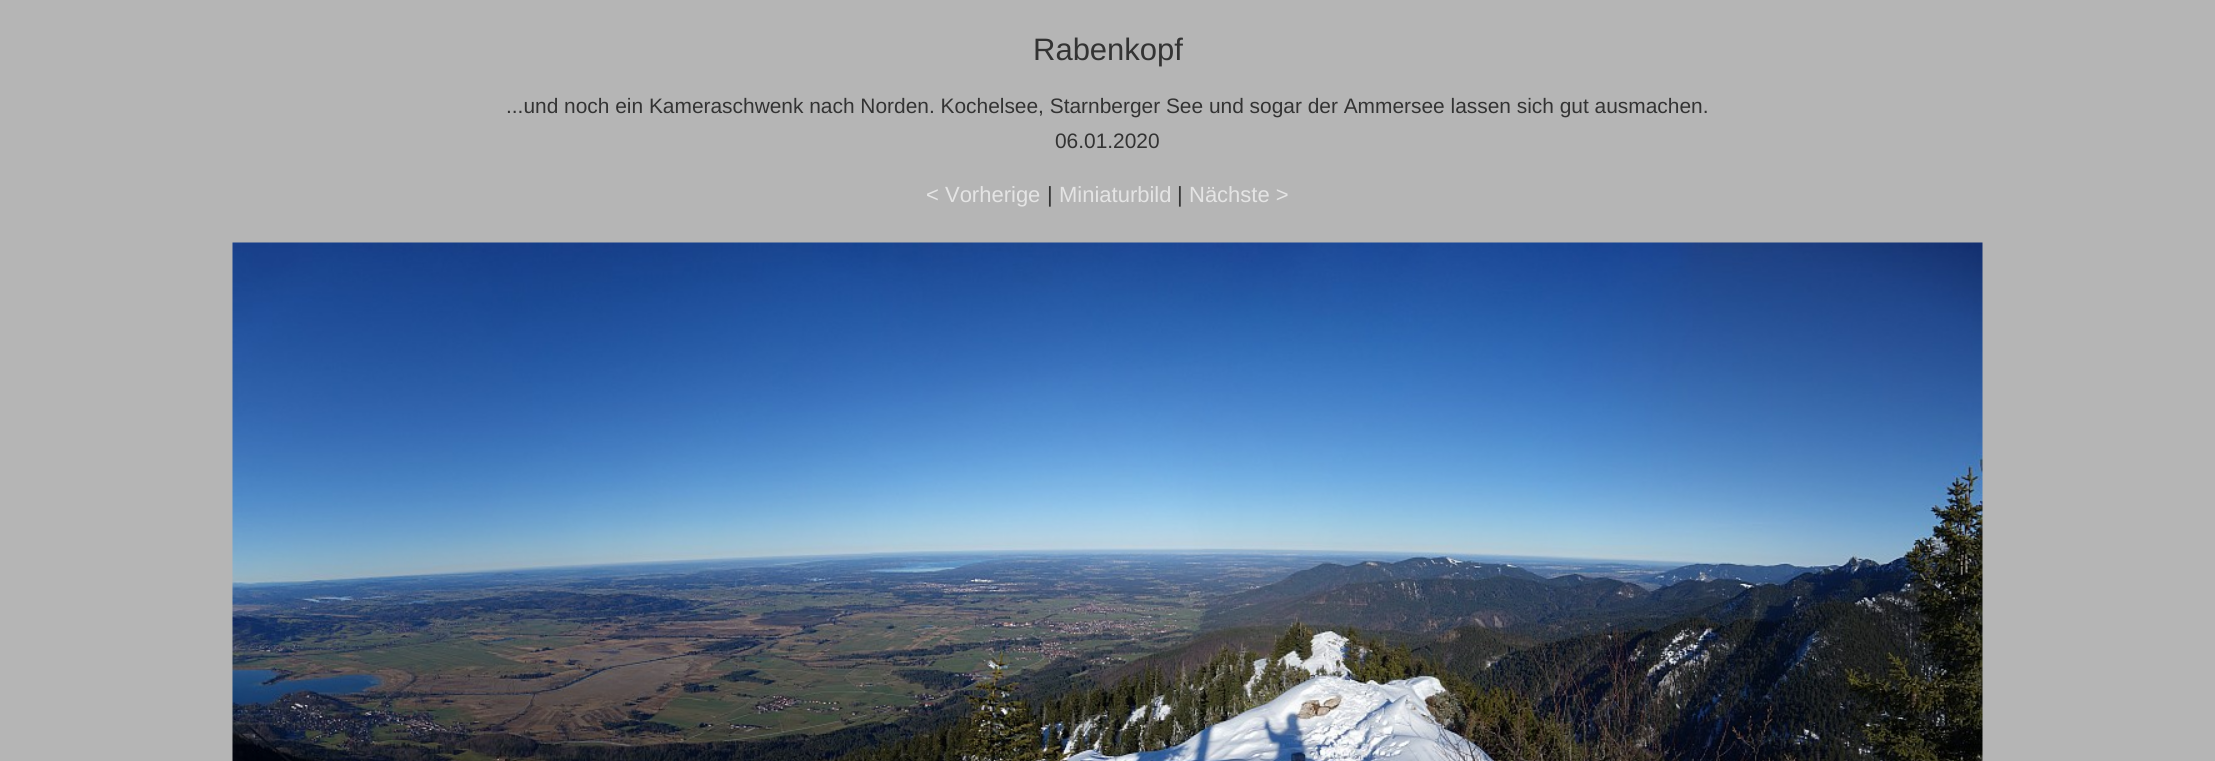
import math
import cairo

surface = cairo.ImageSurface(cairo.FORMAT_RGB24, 2215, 761)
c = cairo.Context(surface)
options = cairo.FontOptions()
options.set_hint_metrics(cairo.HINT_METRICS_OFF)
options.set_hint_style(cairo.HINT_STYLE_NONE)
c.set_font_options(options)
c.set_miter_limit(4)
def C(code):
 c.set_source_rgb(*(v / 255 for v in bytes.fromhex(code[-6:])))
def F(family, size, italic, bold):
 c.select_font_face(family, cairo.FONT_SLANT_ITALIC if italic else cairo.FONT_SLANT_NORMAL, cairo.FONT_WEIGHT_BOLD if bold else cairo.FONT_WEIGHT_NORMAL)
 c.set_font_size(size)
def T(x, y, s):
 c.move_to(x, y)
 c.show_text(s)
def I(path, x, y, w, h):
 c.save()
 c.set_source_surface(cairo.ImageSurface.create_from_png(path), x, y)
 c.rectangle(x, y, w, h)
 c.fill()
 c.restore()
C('b5b5b5')
c.paint()
F('Liberation Sans',31,0,0)
C('333333')
T(1033,60,'Rabenkopf')
F('Liberation Sans',20.9,0,0)
T(506,113,'...und noch ein Kameraschwenk nach Norden. Kochelsee, Starnberger See und sogar der Ammersee lassen sich gut ausmachen.')
T(1055,148,'06.01.2020')
F('Liberation Sans',22,0,0)
C('e4e4e4')
T(926,202,'< Vorherige')
C('333333')
T(1047,202,'|')
C('e4e4e4')
T(1059,202,'Miniaturbild')
C('333333')
T(1177,202,'|')
C('e4e4e4')
T(1189,202,'Nächste >')
I('1.png',232,242,1751,519)
surface.write_to_png('o.png')
